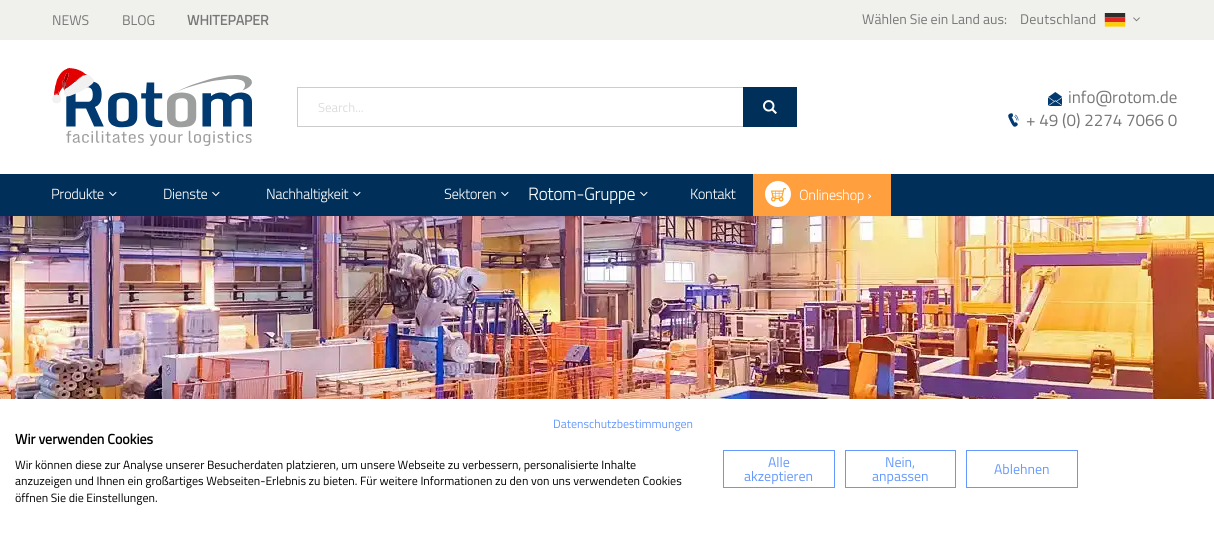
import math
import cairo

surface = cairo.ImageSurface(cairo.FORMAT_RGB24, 1214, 534)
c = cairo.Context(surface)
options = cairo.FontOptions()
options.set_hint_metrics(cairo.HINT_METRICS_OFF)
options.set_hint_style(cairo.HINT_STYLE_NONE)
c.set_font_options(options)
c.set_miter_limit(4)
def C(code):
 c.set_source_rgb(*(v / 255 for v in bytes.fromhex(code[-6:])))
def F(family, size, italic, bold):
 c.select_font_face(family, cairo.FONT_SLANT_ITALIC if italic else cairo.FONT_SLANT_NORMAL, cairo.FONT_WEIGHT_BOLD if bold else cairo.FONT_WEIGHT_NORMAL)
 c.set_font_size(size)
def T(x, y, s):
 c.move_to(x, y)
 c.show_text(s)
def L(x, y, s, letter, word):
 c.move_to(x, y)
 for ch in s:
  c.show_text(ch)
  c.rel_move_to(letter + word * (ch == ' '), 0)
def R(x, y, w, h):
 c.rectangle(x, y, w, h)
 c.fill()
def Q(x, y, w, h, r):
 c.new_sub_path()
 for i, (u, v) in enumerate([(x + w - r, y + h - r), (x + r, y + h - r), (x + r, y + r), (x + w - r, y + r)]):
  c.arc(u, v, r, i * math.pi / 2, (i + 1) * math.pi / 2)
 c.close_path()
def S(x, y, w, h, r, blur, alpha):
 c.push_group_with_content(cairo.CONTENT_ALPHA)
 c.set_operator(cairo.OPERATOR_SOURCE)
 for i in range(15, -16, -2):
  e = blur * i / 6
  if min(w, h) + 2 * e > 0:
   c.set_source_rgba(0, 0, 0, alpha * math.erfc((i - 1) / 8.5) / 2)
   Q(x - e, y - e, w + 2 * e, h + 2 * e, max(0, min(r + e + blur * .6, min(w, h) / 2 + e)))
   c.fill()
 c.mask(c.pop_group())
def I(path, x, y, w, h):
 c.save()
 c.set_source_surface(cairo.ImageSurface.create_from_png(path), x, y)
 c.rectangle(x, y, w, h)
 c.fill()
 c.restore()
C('ffffff')
c.paint()
C('f0f0ed')
R(0,0,1214,40)
F('Titillium Web',14,0,0)
C('777777')
T(52,25,'NEWS')
T(122,25,'BLOG')
F('Titillium Web',14,0,1)
T(187,25,'WHITEPAPER')
F('Titillium Web',14,0,0)
T(862,24,'Wählen Sie ein Land aus:')
L(1020,24,'Deutschland',.25,0)
I('1.png',1104,13,22,14)
I('2.png',1133,17,7,5)
I('3.png',52,68,200,78)
c.rectangle(297.5,87.5,499,39)
C('cccccc')
c.set_line_width(1)
c.stroke()
F('Titillium Web',13,0,0)
C('dddddd')
T(318,112,'Search...')
C('00305a')
R(743,87,54,40)
I('4.png',763,100,14,14)
I('5.png',1048,92,14,14)
F('Titillium Web',17,0,0)
C('777777')
T(1068,103,'info@rotom.de')
I('6.png',1008,113,11,14)
T(1026,126,'+ 49 (0) 2274 7066 0')
C('00305a')
R(0,174,1214,42)
F('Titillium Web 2',14,0,1)
C('ffffff')
T(51,199,'Produkte')
I('7.png',109,191,8,6)
T(266,199,'Nachhaltigkeit')
I('7.png',353,191,8,6)
F('Titillium Web 2',17,0,1)
T(528,200,'Rotom-Gruppe')
I('7.png',640,191,8,6)
F('Titillium Web 2',14,0,1)
T(690,199,'Kontakt')
C('ff9f3e')
R(753,174,138,42)
C('ffffff')
c.new_path()
c.arc(778,194,13,0,2 * math.pi)
c.fill()
I('8.png',771,188,15,14)
T(799,200,'Onlineshop ›')
T(163,199,'Dienste')
I('7.png',212,191,8,6)
T(444,199,'Sektoren')
I('7.png',501,191,8,6)
I('9.png',0,216,1214,183)
C('000000')
S(0,399,1214,135,0,12,.1)
C('ffffff')
R(0,399,1214,135)
F('Titillium Web',12,0,0)
C('6699ff')
T(553,428,'Datenschutzbestimmungen')
F('Titillium Web',14,0,1)
C('000000')
T(15,444,'Wir verwenden Cookies')
F('Titillium Web',12,0,0)
T(15,469,'Wir können diese zur Analyse unserer Besucherdaten platzieren, um unsere Webseite zu verbessern, personalisierte Inhalte')
T(15,485,'anzuzeigen und Ihnen ein großartiges Webseiten-Erlebnis zu bieten. Für weitere Informationen zu den von uns verwendeten Cookies')
T(15,502,'öffnen Sie die Einstellungen.')
c.rectangle(723.5,450.5,111,37)
C('6699ff')
c.stroke()
F('Titillium Web',14,0,0)
T(768,467,'Alle')
T(744,481,'akzeptieren')
c.rectangle(845.5,450.5,110,37)
c.stroke()
T(885,467,'Nein,')
T(872,481,'anpassen')
c.rectangle(966.5,450.5,111,37)
c.stroke()
T(994,474,'Ablehnen')
surface.write_to_png('o.png')
